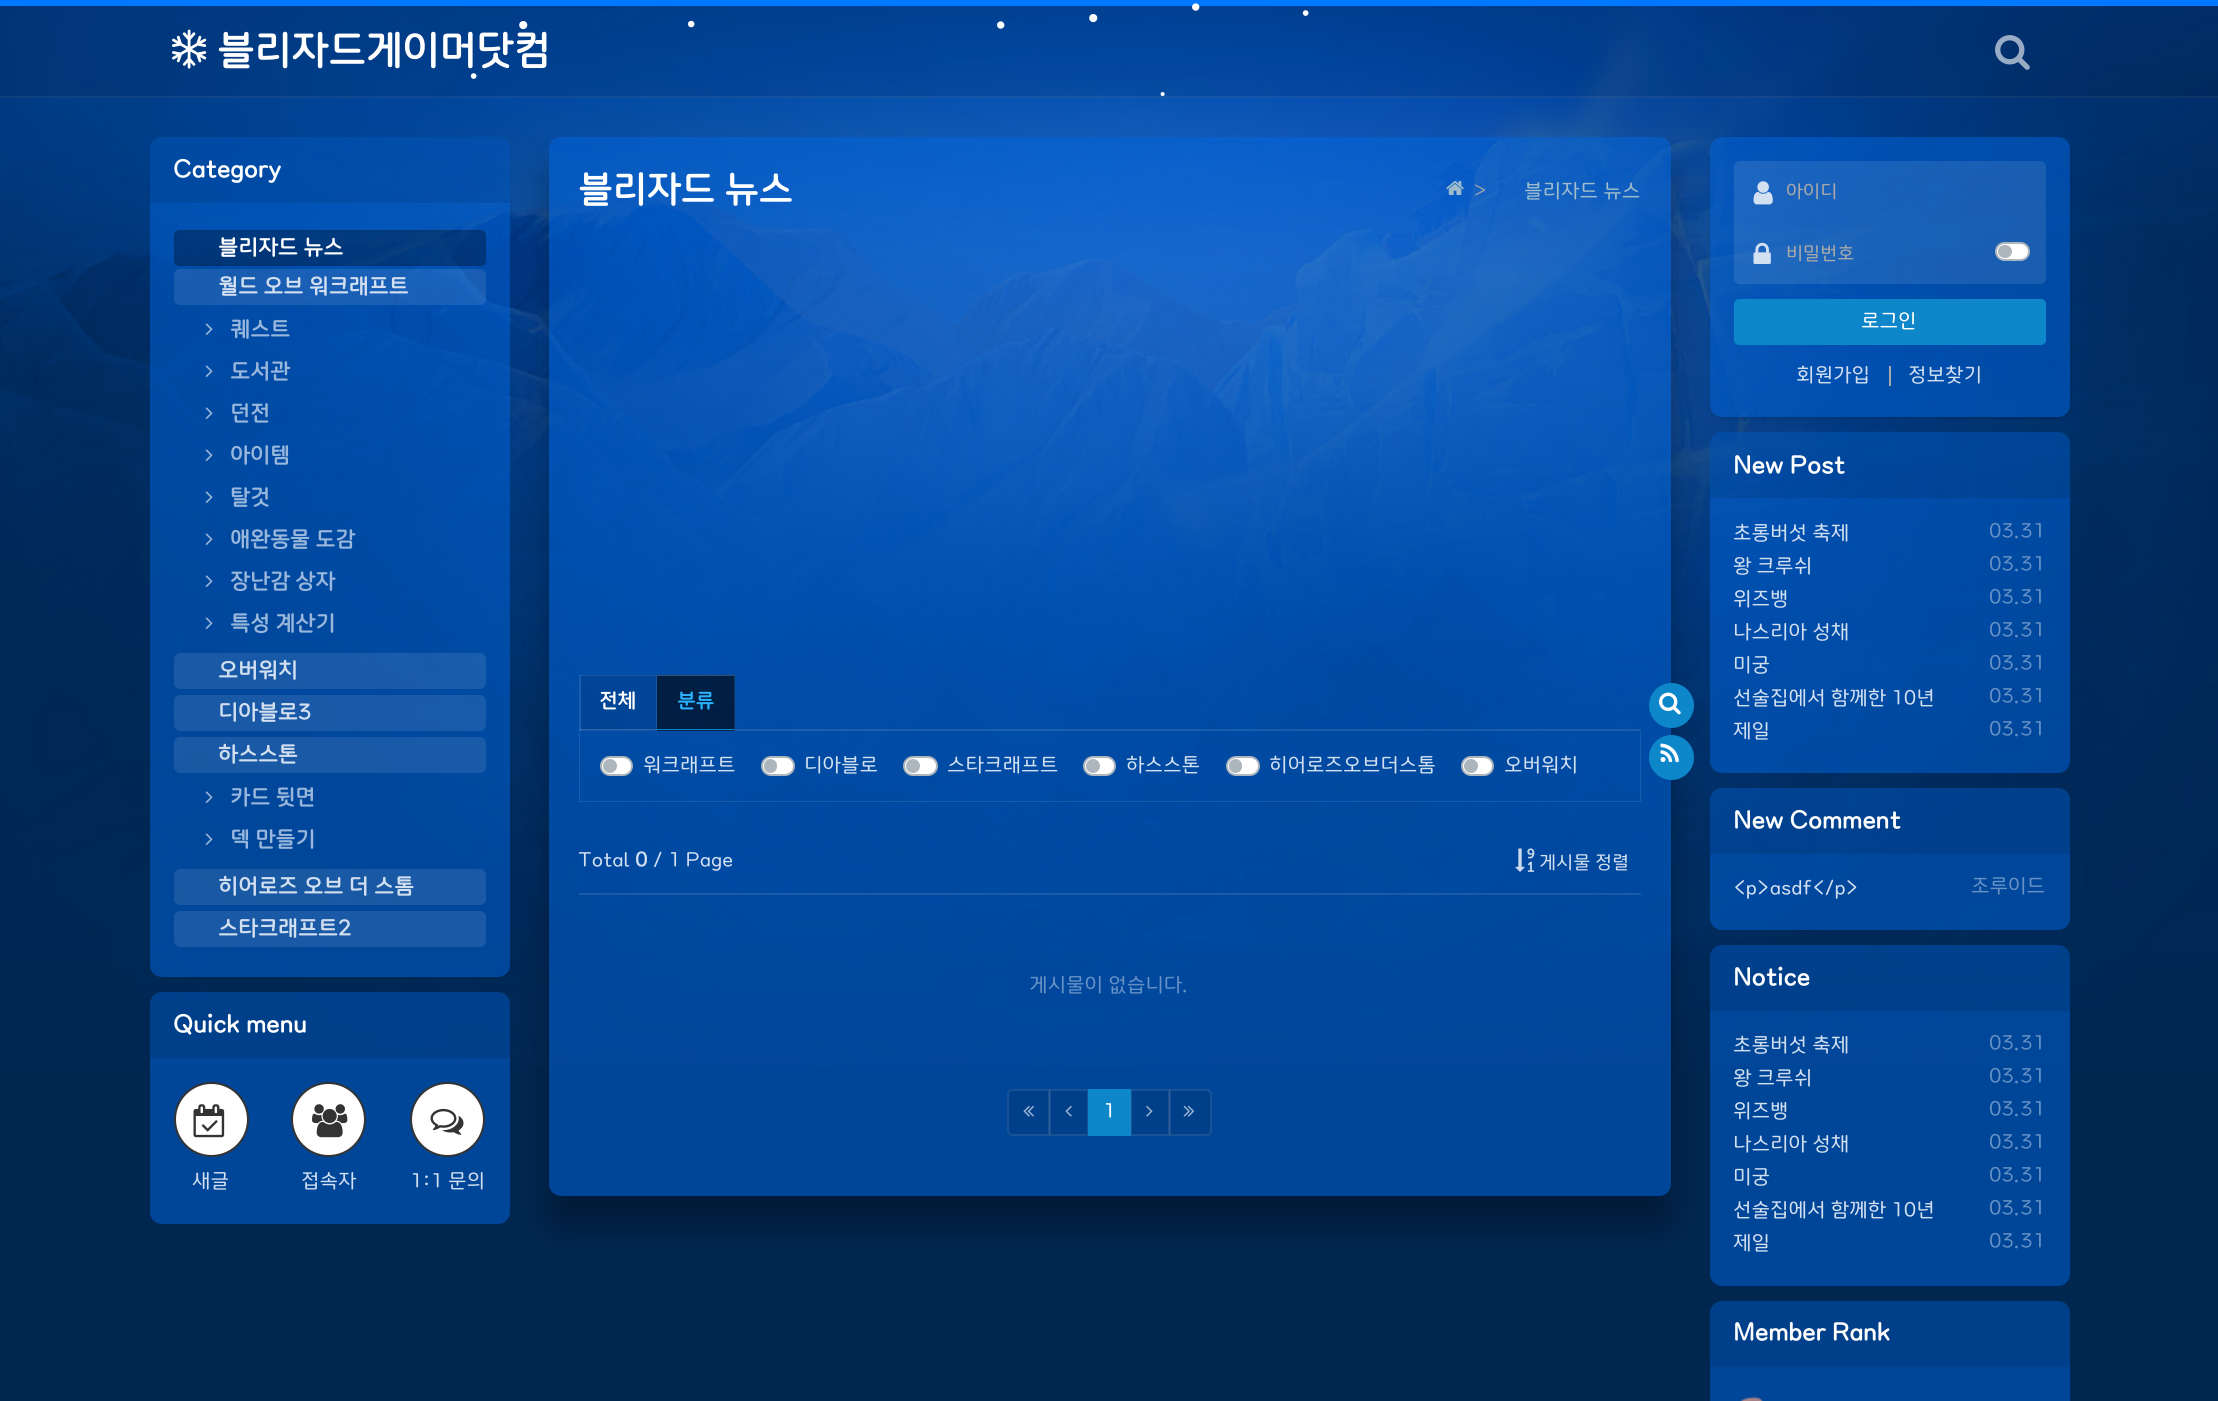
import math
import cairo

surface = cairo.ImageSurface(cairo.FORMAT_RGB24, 2218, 1401)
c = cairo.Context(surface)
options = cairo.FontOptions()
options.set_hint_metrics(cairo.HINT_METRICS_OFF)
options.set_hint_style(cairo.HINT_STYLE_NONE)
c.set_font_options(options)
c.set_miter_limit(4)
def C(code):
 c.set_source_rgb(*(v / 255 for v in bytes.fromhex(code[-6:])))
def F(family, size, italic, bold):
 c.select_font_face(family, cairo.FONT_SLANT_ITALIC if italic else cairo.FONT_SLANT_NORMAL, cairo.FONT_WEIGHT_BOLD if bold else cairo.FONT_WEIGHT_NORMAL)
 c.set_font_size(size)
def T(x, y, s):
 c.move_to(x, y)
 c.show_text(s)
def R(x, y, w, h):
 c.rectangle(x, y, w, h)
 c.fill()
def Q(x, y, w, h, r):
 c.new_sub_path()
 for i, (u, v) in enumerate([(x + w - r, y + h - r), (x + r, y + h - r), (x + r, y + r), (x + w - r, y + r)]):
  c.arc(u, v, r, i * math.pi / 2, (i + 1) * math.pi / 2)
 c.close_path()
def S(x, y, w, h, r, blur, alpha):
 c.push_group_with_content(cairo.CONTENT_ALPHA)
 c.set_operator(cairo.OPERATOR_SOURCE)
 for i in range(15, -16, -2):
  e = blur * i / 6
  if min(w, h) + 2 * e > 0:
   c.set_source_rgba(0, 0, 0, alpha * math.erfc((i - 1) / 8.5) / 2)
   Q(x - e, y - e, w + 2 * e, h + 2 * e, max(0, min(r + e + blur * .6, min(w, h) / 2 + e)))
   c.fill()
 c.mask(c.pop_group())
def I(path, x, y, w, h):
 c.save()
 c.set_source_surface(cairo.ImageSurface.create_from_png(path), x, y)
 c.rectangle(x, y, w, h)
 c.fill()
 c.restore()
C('012650')
c.paint()
I('1.png',0,6,2218,1061)
c.set_source_rgba(0,0,0,0.1)
R(0,6,2218,92)
C('0078ff')
R(0,0,2218,6)
F('Liberation Sans',27,0,0)
C('ffffff')
T(1191,16,'•')
F('Liberation Sans',21,0,0)
T(1302,20,'•')
F('Liberation Sans',30,0,0)
T(1088,28,'•')
T(518,35,'•')
F('Liberation Sans',24,0,0)
T(687,32,'•')
F('Liberation Sans',27,0,0)
T(996,34,'•')
c.set_source_rgba(1,1,1,0.06)
R(0,96,2218,2)
I('2.png',172,29,35,40)
F('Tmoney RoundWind',39,0,1)
C('ffffff')
T(217,63,'블리자드게이머닷컴')
I('3.png',1995,35,35,35)
c.set_source_rgba(0,0.4,0.882,0.5)
Q(150,137,360,840,12)
c.fill()
c.set_source_rgba(0,0,0,0.1)
c.new_path()
c.move_to(162,137)
c.line_to(498,137)
c.curve_to(504.5,137,510,142.5,510,149)
c.line_to(510,203)
c.line_to(150,203)
c.line_to(150,149)
c.curve_to(150,142.5,155.5,137,162,137)
c.close_path()
c.fill()
F('Tmoney RoundWind',24,0,1)
C('ffffff')
T(173,177,'Category')
c.set_source_rgba(0,0,0,0.3)
Q(174,230,312,36,6)
c.fill()
c.rectangle(175,231,310,34)
c.set_source_rgba(0,0,0,0.04)
c.stroke()
F('Tmoney RoundWind',21,0,1)
C('ffffff')
T(218,254,'블리자드 뉴스')
c.set_source_rgba(1,1,1,0.1)
Q(174,269,312,36,6)
c.fill()
C('d1dff0')
T(218,293,'월드 오브 워크래프트')
I('4.png',205,323,8,12)
C('99b7dc')
T(230,336,'퀘스트')
I('5.png',205,365,8,12)
T(230,378,'도서관')
I('6.png',205,407,8,12)
T(230,420,'던전')
I('7.png',205,449,8,12)
T(230,462,'아이템')
I('8.png',205,491,8,12)
T(230,504,'탈것')
I('9.png',205,533,8,12)
T(230,546,'애완동물 도감')
I('10.png',205,575,8,12)
T(230,588,'장난감 상자')
I('11.png',205,617,8,12)
T(230,630,'특성 계산기')
c.set_source_rgba(1,1,1,0.1)
Q(174,653,312,36,6)
c.fill()
C('d1dff0')
T(218,677,'오버워치')
c.set_source_rgba(1,1,1,0.1)
Q(174,695,312,36,6)
c.fill()
C('d1dff0')
T(218,719,'디아블로3')
c.set_source_rgba(1,1,1,0.1)
Q(174,737,312,36,6)
c.fill()
C('d1dff0')
T(218,761,'하스스톤')
I('12.png',205,791,8,12)
C('99b7dc')
T(230,804,'카드 뒷면')
I('13.png',205,833,8,12)
T(230,846,'덱 만들기')
c.set_source_rgba(1,1,1,0.1)
Q(174,869,312,36,6)
c.fill()
C('d1dff0')
T(218,893,'히어로즈 오브 더 스톰')
C('1a59a5')
Q(174,911,312,36,6)
c.fill()
C('d1dff0')
T(218,935,'스타크래프트2')
c.set_source_rgba(0,0.4,0.882,0.5)
Q(150,992,360,232,12)
c.fill()
c.set_source_rgba(0,0,0,0.1)
c.new_path()
c.move_to(162,992)
c.line_to(498,992)
c.curve_to(504.5,992,510,997.5,510,1004)
c.line_to(510,1058)
c.line_to(150,1058)
c.line_to(150,1004)
c.curve_to(150,997.5,155.5,992,162,992)
c.close_path()
c.fill()
F('Tmoney RoundWind',24,0,1)
C('ffffff')
T(173,1032,'Quick menu')
c.new_path()
c.arc(211.5,1119.5,36.5,0,2 * math.pi)
c.fill_preserve()
C('333333')
c.stroke()
I('14.png',193,1104,32,34)
F('Tmoney RoundWind',19.5,0,0)
C('d1dff0')
T(192,1187,'새글')
C('ffffff')
c.new_path()
c.arc(328.5,1119.5,36.5,0,2 * math.pi)
c.fill_preserve()
C('333333')
c.stroke()
I('15.png',312,1104,36,34)
C('d1dff0')
T(301,1187,'접속자')
C('ffffff')
c.new_path()
c.arc(447.5,1119.5,36.5,0,2 * math.pi)
c.fill_preserve()
C('333333')
c.stroke()
I('16.png',430,1108,34,27)
C('d1dff0')
T(410,1187,'1:1 문의')
c.save()
c.set_fill_rule(cairo.FILL_RULE_EVEN_ODD)
c.new_path()
c.move_to(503,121)
c.line_to(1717,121)
c.line_to(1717,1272)
c.line_to(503,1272)
c.close_path()
c.move_to(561,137)
c.line_to(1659,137)
c.curve_to(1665.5,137,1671,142.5,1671,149)
c.line_to(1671,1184)
c.curve_to(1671,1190.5,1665.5,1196,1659,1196)
c.line_to(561,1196)
c.curve_to(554.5,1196,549,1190.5,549,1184)
c.line_to(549,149)
c.curve_to(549,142.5,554.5,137,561,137)
c.close_path()
c.clip()
C('000000')
S(549,167,1122,1059,12,15,.3)
c.restore()
c.set_source_rgba(0,0.4,0.882,0.5)
Q(549,137,1122,1059,12)
c.fill()
F('Tmoney RoundWind',36,0,1)
C('ffffff')
T(578,201,'블리자드 뉴스')
I('17.png',1446,181,18,14)
F('Dotum',19.5,0,0)
C('aaaaaa')
T(1474,197,'>')
F('Tmoney RoundWind',19.5,0,0)
C('9ebccc')
T(1524,197,'블리자드 뉴스')
c.set_source_rgba(1,1,1,0.1)
R(579,729,1062,2)
R(579,675,2,56)
c.set_source_rgba(0,0,0,0.1)
R(581,675,76,56)
c.set_source_rgba(1,1,1,0.1)
c.new_path()
c.move_to(580,675)
c.line_to(657,675)
c.line_to(656,676)
c.line_to(580,676)
c.close_path()
c.fill()
c.new_path()
c.move_to(657,675)
c.line_to(657,730)
c.line_to(656,729)
c.line_to(656,676)
c.close_path()
c.fill()
c.new_path()
c.move_to(657,730)
c.line_to(580,730)
c.line_to(580,729)
c.line_to(656,729)
c.close_path()
c.fill()
F('Tmoney RoundWind',19.5,0,1)
C('ffffff')
T(599,707,'전체')
c.set_source_rgba(0,0,0,0.6)
R(657,675,78,56)
C('334c69')
c.new_path()
c.move_to(657,675)
c.line_to(735,675)
c.line_to(734,676)
c.line_to(657,676)
c.close_path()
c.fill()
c.set_source_rgba(1,1,1,0.1)
c.new_path()
c.move_to(735,675)
c.line_to(735,730)
c.line_to(734,729)
c.line_to(734,676)
c.close_path()
c.fill()
C('0e86ca')
c.new_path()
c.move_to(735,730)
c.line_to(657,730)
c.line_to(657,729)
c.line_to(734,729)
c.close_path()
c.fill()
C('2cb3ff')
T(677,707,'분류')
c.set_source_rgba(1,1,1,0.1)
c.new_path()
c.move_to(1641,732)
c.line_to(1641,802)
c.line_to(1640,801)
c.line_to(1640,732)
c.close_path()
c.fill()
c.new_path()
c.move_to(1641,802)
c.line_to(579,802)
c.line_to(580,801)
c.line_to(1640,801)
c.close_path()
c.fill()
c.new_path()
c.move_to(579,802)
c.line_to(579,732)
c.line_to(580,732)
c.line_to(580,801)
c.close_path()
c.fill()
C('ffffff')
Q(601,757,31,18,9)
c.fill_preserve()
C('adb5bd')
c.stroke()
F('Tmoney RoundWind',19.5,0,0)
C('d1dff0')
T(643,771,'워크래프트')
C('adb5bd')
c.new_path()
c.arc(610,766,7,0,2 * math.pi)
c.fill()
C('ffffff')
Q(762,757,32,18,9)
c.fill_preserve()
C('adb5bd')
c.stroke()
C('d1dff0')
T(804,771,'디아블로')
C('adb5bd')
Q(764,759,13,14,6.5)
c.fill()
C('ffffff')
Q(904,757,33,18,9)
c.fill_preserve()
C('adb5bd')
c.stroke()
C('d1dff0')
T(947,771,'스타크래프트')
C('adb5bd')
c.new_path()
c.arc(913,766,7,0,2 * math.pi)
c.fill()
C('ffffff')
Q(1084,757,31,18,9)
c.fill_preserve()
C('adb5bd')
c.stroke()
C('d1dff0')
T(1126,771,'하스스톤')
C('adb5bd')
c.new_path()
c.arc(1093,766,7,0,2 * math.pi)
c.fill()
C('ffffff')
Q(1227,757,32,18,9)
c.fill_preserve()
C('adb5bd')
c.stroke()
C('d1dff0')
T(1269,771,'히어로즈오브더스톰')
C('adb5bd')
Q(1229,759,13,14,6.5)
c.fill()
C('ffffff')
Q(1462,757,31,18,9)
c.fill_preserve()
C('adb5bd')
c.stroke()
C('d1dff0')
T(1504,771,'오버워치')
C('adb5bd')
c.new_path()
c.arc(1471,766,7,0,2 * math.pi)
c.fill()
C('0e86ca')
c.arc(1671.5,705.5,22.5,0,2 * math.pi)
c.fill()
I('18.png',1659,692,22,23)
c.arc(1671.5,757.5,22.5,0,2 * math.pi)
c.fill()
I('19.png',1660,743,19,19)
C('d1dff0')
T(578,866,'Total')
F('Tmoney RoundWind',19.5,0,1)
T(635,866,'0')
F('Tmoney RoundWind',19.5,0,0)
T(653,866,'/ 1 Page')
I('20.png',1515,848,20,24)
F('Tmoney RoundWind',18,0,0)
T(1539,868,'게시물 정렬')
c.set_source_rgba(1,1,1,0.1)
R(579,893,1062,2)
F('Tmoney RoundWind',19.5,0,0)
C('6691c5')
T(1029,991,'게시물이 없습니다.')
C('003f89')
c.new_path()
c.move_to(1012,1089)
c.line_to(1050,1089)
c.line_to(1050,1136)
c.line_to(1012,1136)
c.curve_to(1009,1136,1007,1134,1007,1131)
c.line_to(1007,1094)
c.curve_to(1007,1091,1009,1089,1012,1089)
c.close_path()
c.fill()
c.new_path()
c.move_to(1012,1090)
c.line_to(1049,1090)
c.line_to(1049,1135)
c.line_to(1012,1135)
c.curve_to(1010,1135,1008,1133,1008,1131)
c.line_to(1008,1094)
c.curve_to(1008,1092,1010,1090,1012,1090)
c.close_path()
c.set_source_rgba(1,1,1,0.1)
c.stroke()
I('21.png',1023,1105,11,12)
c.set_source_rgba(0,0,0,0.1)
R(1049,1089,39,47)
c.rectangle(1050,1090,38,45)
c.set_source_rgba(1,1,1,0.1)
c.stroke()
I('22.png',1065,1105,7,12)
C('003f89')
c.rectangle(1131,1090,38,45)
c.fill_preserve()
C('1a5295')
c.stroke()
C('0e86ca')
R(1088,1089,43,47)
C('ffffff')
T(1103,1117,'1')
I('23.png',1146,1105,7,12)
c.set_source_rgba(0,0,0,0.1)
c.new_path()
c.move_to(1169,1089)
c.line_to(1207,1089)
c.curve_to(1210,1089,1212,1091,1212,1094)
c.line_to(1212,1131)
c.curve_to(1212,1134,1210,1136,1207,1136)
c.line_to(1169,1136)
c.close_path()
c.fill()
c.new_path()
c.move_to(1170,1090)
c.line_to(1207,1090)
c.curve_to(1209,1090,1211,1092,1211,1094)
c.line_to(1211,1131)
c.curve_to(1211,1133,1209,1135,1207,1135)
c.line_to(1170,1135)
c.close_path()
c.set_source_rgba(1,1,1,0.1)
c.stroke()
I('24.png',1183,1105,12,12)
c.save()
c.set_fill_rule(cairo.FILL_RULE_EVEN_ODD)
c.new_path()
c.move_to(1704,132)
c.line_to(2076,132)
c.line_to(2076,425)
c.line_to(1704,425)
c.close_path()
c.move_to(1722,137)
c.line_to(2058,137)
c.curve_to(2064.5,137,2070,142.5,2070,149)
c.line_to(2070,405)
c.curve_to(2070,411.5,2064.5,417,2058,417)
c.line_to(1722,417)
c.curve_to(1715.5,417,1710,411.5,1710,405)
c.line_to(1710,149)
c.curve_to(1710,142.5,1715.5,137,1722,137)
c.close_path()
c.clip()
C('000000')
S(1710,138,360,281,12,1.5,.1)
c.restore()
c.set_source_rgba(0,0.4,0.882,0.5)
Q(1710,137,360,280,12)
c.fill()
c.set_source_rgba(1,1,1,0.1)
Q(1734,161,312,123,6)
c.fill()
I('25.png',1753,181,20,24)
F('Tmoney RoundWind',18,0,0)
C('aaaaaa')
T(1786,197,'아이디')
I('26.png',1753,242,18,22)
T(1786,259,'비밀번호')
C('ffffff')
Q(1996,243,33,17,8.5)
c.fill_preserve()
C('adb5bd')
c.stroke()
Q(1998,245,14,13,6.5)
c.fill()
C('0e86ca')
Q(1735,300,310,44,4)
c.fill_preserve()
c.stroke()
F('Tmoney RoundWind',19.5,0,0)
C('ffffff')
T(1861,327,'로그인')
C('d1dff0')
T(1796,381,'회원가입')
C('aaaaaa')
R(1889,366,2,20)
C('d1dff0')
T(1908,381,'정보찾기')
c.set_source_rgba(0,0.4,0.882,0.5)
Q(1710,432,360,341,12)
c.fill()
c.set_source_rgba(0,0,0,0.1)
c.new_path()
c.move_to(1722,432)
c.line_to(2058,432)
c.curve_to(2064.5,432,2070,437.5,2070,444)
c.line_to(2070,498)
c.line_to(1710,498)
c.line_to(1710,444)
c.curve_to(1710,437.5,1715.5,432,1722,432)
c.close_path()
c.fill()
F('Tmoney RoundWind',24,0,1)
C('ffffff')
T(1733,473,'New Post')
F('Tmoney RoundWind',19.5,0,0)
C('d1dff0')
T(1733,539,'초롱버섯 축제')
C('6691c5')
T(1989,537,'03.31')
C('d1dff0')
T(1733,572,'왕 크루쉬')
C('6691c5')
T(1989,570,'03.31')
C('d1dff0')
T(1733,605,'위즈뱅')
C('6691c5')
T(1989,603,'03.31')
C('d1dff0')
T(1733,638,'나스리아 성채')
C('6691c5')
T(1989,636,'03.31')
C('d1dff0')
T(1733,671,'미궁')
C('6691c5')
T(1989,669,'03.31')
C('d1dff0')
T(1733,704,'선술집에서 함께한 10년')
C('6691c5')
T(1989,702,'03.31')
C('d1dff0')
T(1733,737,'제일')
C('6691c5')
T(1989,735,'03.31')
c.set_source_rgba(0,0.4,0.882,0.5)
Q(1710,788,360,142,12)
c.fill()
c.set_source_rgba(0,0,0,0.1)
c.new_path()
c.move_to(1722,788)
c.line_to(2058,788)
c.curve_to(2064.5,788,2070,793.5,2070,800)
c.line_to(2070,854)
c.line_to(1710,854)
c.line_to(1710,800)
c.curve_to(1710,793.5,1715.5,788,1722,788)
c.close_path()
c.fill()
F('Tmoney RoundWind',24,0,1)
C('ffffff')
T(1733,828,'New Comment')
F('Tmoney RoundWind',19.5,0,0)
C('d1dff0')
T(1733,894,'<p>asdf</p>')
C('6691c5')
T(1971,892,'조루이드')
c.set_source_rgba(0,0.4,0.882,0.5)
Q(1710,945,360,341,12)
c.fill()
c.set_source_rgba(0,0,0,0.1)
c.new_path()
c.move_to(1722,945)
c.line_to(2058,945)
c.curve_to(2064.5,945,2070,950.5,2070,957)
c.line_to(2070,1011)
c.line_to(1710,1011)
c.line_to(1710,957)
c.curve_to(1710,950.5,1715.5,945,1722,945)
c.close_path()
c.fill()
F('Tmoney RoundWind',24,0,1)
C('ffffff')
T(1733,985,'Notice')
F('Tmoney RoundWind',19.5,0,0)
C('d1dff0')
T(1733,1051,'초롱버섯 축제')
C('6691c5')
T(1989,1049,'03.31')
C('d1dff0')
T(1733,1084,'왕 크루쉬')
C('6691c5')
T(1989,1082,'03.31')
C('d1dff0')
T(1733,1117,'위즈뱅')
C('6691c5')
T(1989,1115,'03.31')
C('d1dff0')
T(1733,1150,'나스리아 성채')
C('6691c5')
T(1989,1148,'03.31')
C('d1dff0')
T(1733,1183,'미궁')
C('6691c5')
T(1989,1181,'03.31')
C('d1dff0')
T(1733,1216,'선술집에서 함께한 10년')
C('6691c5')
T(1989,1214,'03.31')
C('d1dff0')
T(1733,1249,'제일')
C('6691c5')
T(1989,1247,'03.31')
C('004698')
Q(1710,1301,360,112,12)
c.fill()
c.set_source_rgba(0,0,0,0.1)
c.new_path()
c.move_to(1722,1301)
c.line_to(2058,1301)
c.curve_to(2064.5,1301,2070,1306.5,2070,1313)
c.line_to(2070,1367)
c.line_to(1710,1367)
c.line_to(1710,1313)
c.curve_to(1710,1306.5,1715.5,1301,1722,1301)
c.close_path()
c.fill()
F('Tmoney RoundWind',24,0,1)
C('ffffff')
T(1733,1340,'Member Rank')
I('27.png',1740,1396,23,5)
F('Liberation Sans',21,0,0)
T(470,83,'•')
F('Liberation Sans',15,0,0)
T(1160,99,'•')
surface.write_to_png('o.png')
